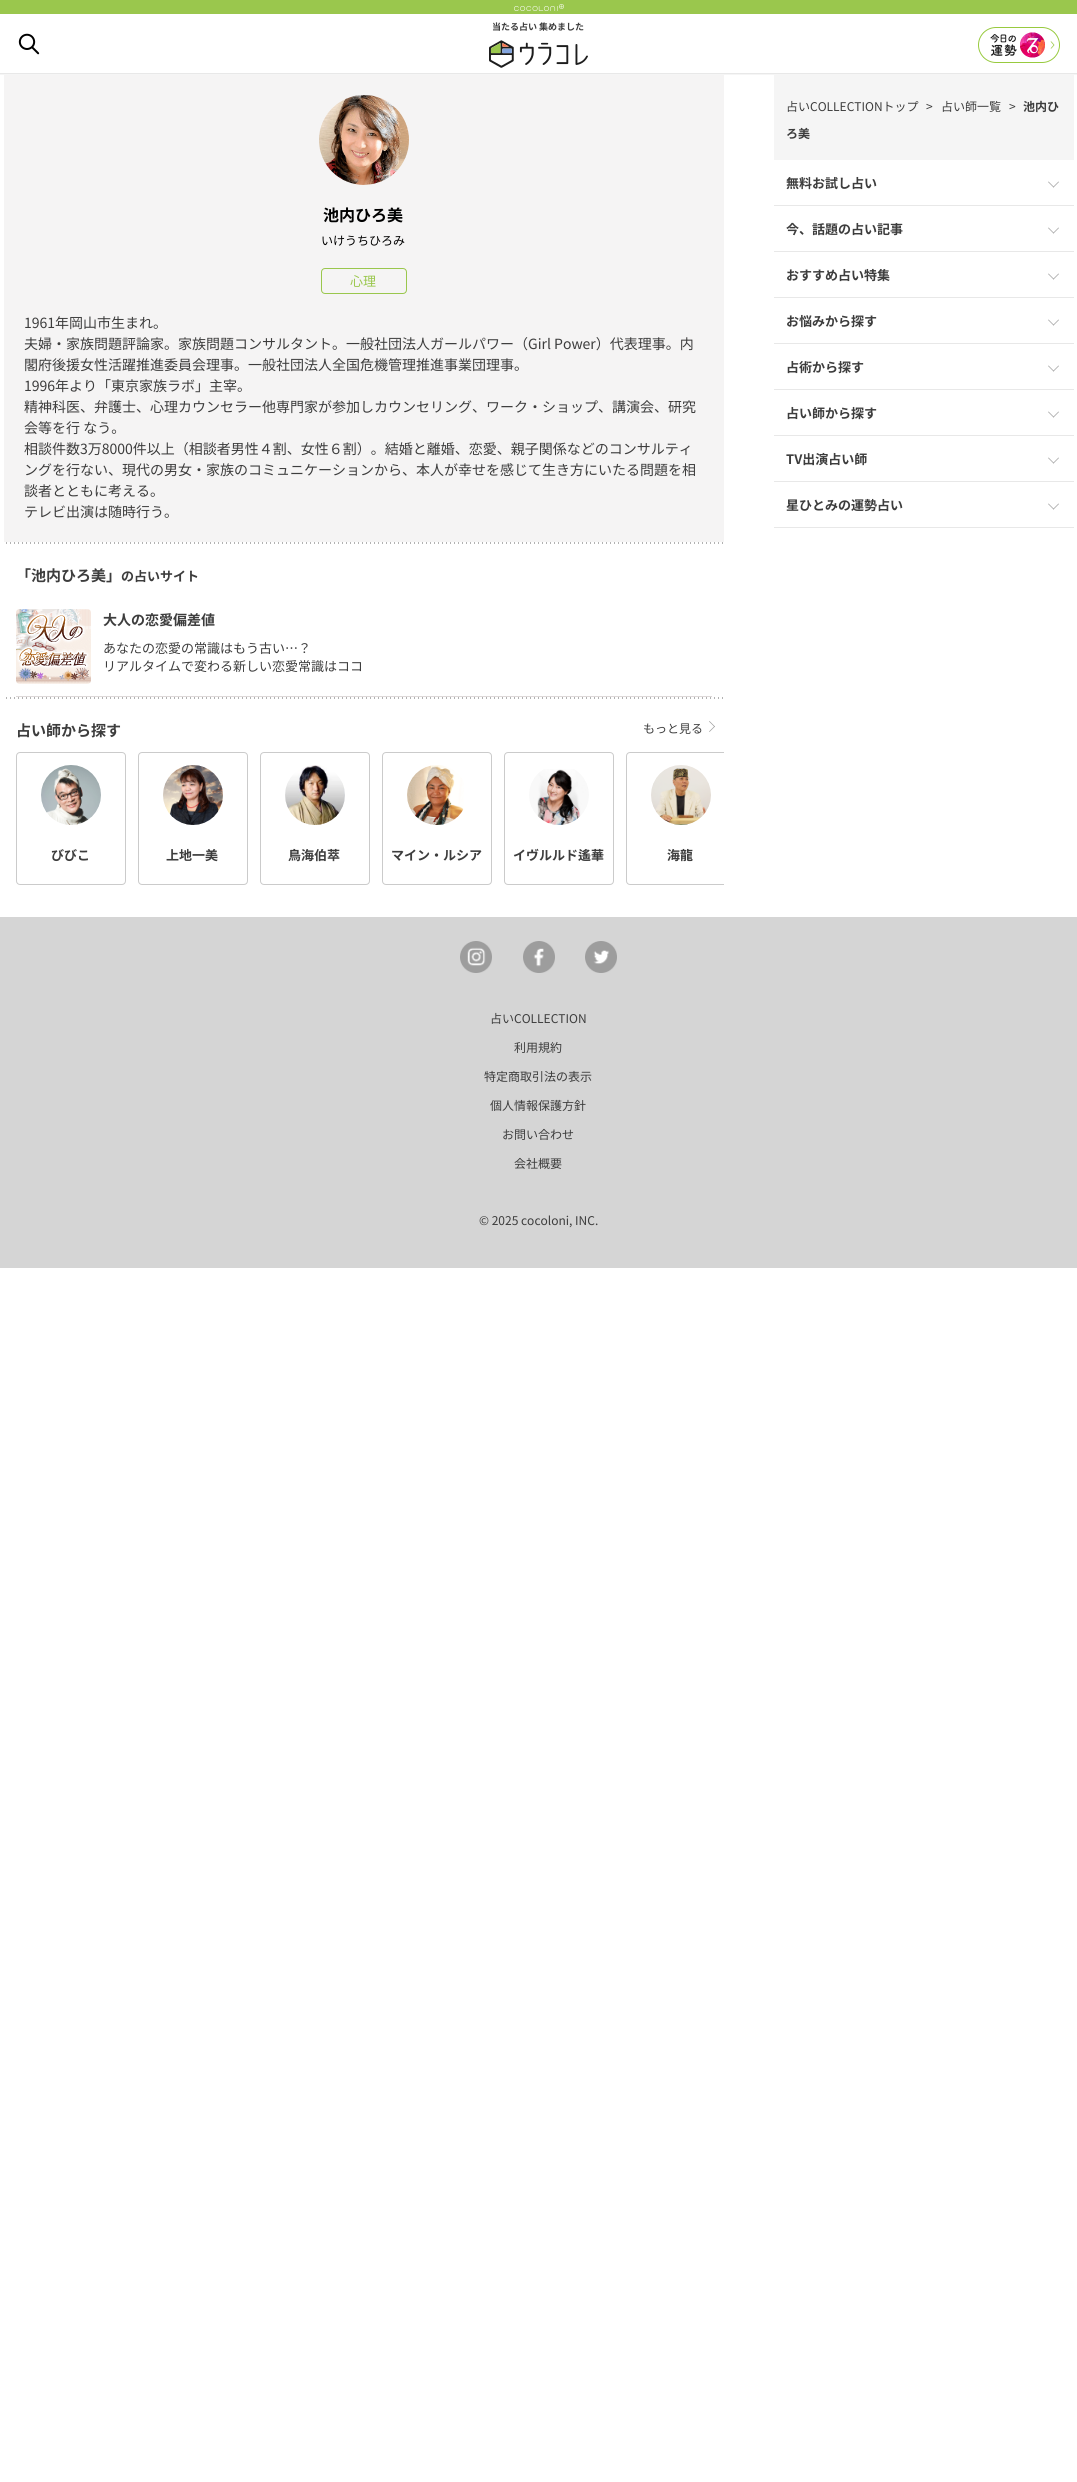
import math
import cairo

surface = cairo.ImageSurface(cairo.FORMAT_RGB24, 1077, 2482)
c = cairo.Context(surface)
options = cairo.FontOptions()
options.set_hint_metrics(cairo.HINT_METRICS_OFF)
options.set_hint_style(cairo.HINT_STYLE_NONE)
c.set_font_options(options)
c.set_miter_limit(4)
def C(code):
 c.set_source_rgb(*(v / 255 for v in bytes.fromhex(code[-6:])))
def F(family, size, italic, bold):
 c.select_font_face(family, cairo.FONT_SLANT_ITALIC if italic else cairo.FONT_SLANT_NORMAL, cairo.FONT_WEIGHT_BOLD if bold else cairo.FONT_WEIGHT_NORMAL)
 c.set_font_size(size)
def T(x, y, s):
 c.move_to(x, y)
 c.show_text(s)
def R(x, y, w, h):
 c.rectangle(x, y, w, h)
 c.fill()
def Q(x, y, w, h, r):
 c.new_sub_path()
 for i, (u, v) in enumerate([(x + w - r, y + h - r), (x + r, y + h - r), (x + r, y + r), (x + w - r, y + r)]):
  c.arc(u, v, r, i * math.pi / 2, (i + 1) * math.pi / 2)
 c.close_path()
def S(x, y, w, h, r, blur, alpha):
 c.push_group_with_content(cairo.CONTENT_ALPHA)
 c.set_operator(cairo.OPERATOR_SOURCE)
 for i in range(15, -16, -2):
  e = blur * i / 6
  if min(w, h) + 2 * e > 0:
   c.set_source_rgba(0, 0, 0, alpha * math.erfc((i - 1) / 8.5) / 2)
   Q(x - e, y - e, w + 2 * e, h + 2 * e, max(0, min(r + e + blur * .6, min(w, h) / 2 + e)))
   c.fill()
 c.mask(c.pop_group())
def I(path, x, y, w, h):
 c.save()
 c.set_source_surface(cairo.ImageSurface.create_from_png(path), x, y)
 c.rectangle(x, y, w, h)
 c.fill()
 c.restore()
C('ffffff')
c.paint()
c.save()
c.rectangle(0,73,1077,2)
c.clip()
C('000000')
S(-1,-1,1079,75,0,1,.13)
c.restore()
C('9ac74d')
R(0,0,1077,14)
I('1.png',514,4,50,7)
I('2.png',18,33,22,22)
F('Noto Sans JP',9,0,1)
C('3d3d3d')
T(492,30,'当たる占い 集めました')
I('3.png',978,27,82,36)
I('4.png',489,40,99,28)
C('f5f4f4')
R(4,75,720,467)
I('5.png',319,95,90,90)
F('Noto Sans JP',16,0,1)
C('000000')
T(323,221,'池内ひろ美')
F('Noto Sans JP',12,0,0)
T(321,245,'いけうちひろみ')
Q(321.5,268.5,85,25,3.5)
C('9ac74d')
c.set_line_width(1)
c.stroke()
F('Noto Sans JP',13,0,0)
T(350,286,'心理')
F('Noto Sans JP',14,0,0)
C('3d3d3d')
T(24,328,'1961年岡山市生まれ。')
T(24,349,'夫婦・家族問題評論家。家族問題コンサルタント。一般社団法人ガールパワー（Girl Power）代表理事。内')
T(24,370,'閣府後援女性活躍推進委員会理事。一般社団法人全国危機管理推進事業団理事。')
T(24,391,'1996年より「東京家族ラボ」主宰。')
T(24,412,'精神科医、弁護士、心理カウンセラー他専門家が参加しカウンセリング、ワーク・ショップ、講演会、研究')
T(24,433,'会等を行 なう。')
T(24,454,'相談件数3万8000件以上（相談者男性４割、女性６割）。結婚と離婚、恋愛、親子関係などのコンサルティ')
T(24,475,'ングを行ない、現代の男女・家族のコミュニケーションから、本人が幸せを感じて生き方にいたる問題を相')
T(24,496,'談者とともに考える。')
T(24,517,'テレビ出演は随時行う。')
I('6.png',6,542,717,2)
F('Noto Sans JP',15,0,1)
T(16,581,'「池内ひろ美」')
F('Noto Sans JP',13,0,1)
T(121,581,'の占いサイト')
C('ddd8d8')
R(16,696,696,1)
I('7.png',16,609,75,75)
F('Noto Sans JP',14,0,1)
C('3d3d3d')
T(103,625,'大人の恋愛偏差値')
F('Noto Sans JP',13,0,0)
T(103,653,'あなたの恋愛の常識はもう古い…？')
T(103,671,'リアルタイムで変わる新しい恋愛常識はココ')
I('6.png',6,697,717,2)
F('Noto Sans JP',15,0,1)
T(16,736,'占い師から探す')
F('Noto Sans JP',12,0,0)
T(643,733,'もっと見る')
C('9f9f9f')
c.new_path()
c.move_to(709.5,721)
c.line_to(715,726.5)
c.line_to(714.5,727)
c.line_to(709,721.5)
c.close_path()
c.fill()
c.new_path()
c.move_to(714.5,726)
c.line_to(715,726.5)
c.line_to(709.5,732)
c.line_to(709,731.5)
c.close_path()
c.fill()
Q(16.5,752.5,109,132,3.5)
C('cbcbcb')
c.stroke()
I('8.png',41,765,60,60)
F('Noto Sans JP',13,0,1)
C('3d3d3d')
T(51,860,'びびこ')
Q(138.5,752.5,109,132,3.5)
C('cbcbcb')
c.stroke()
I('9.png',163,765,60,60)
C('3d3d3d')
T(166,860,'上地一美')
Q(260.5,752.5,109,132,3.5)
C('cbcbcb')
c.stroke()
I('10.png',285,765,60,60)
C('3d3d3d')
T(288,860,'鳥海伯萃')
Q(382.5,752.5,109,132,3.5)
C('cbcbcb')
c.stroke()
I('11.png',407,765,57,60)
C('3d3d3d')
T(391,860,'マイン・ルシア')
Q(504.5,752.5,109,132,3.5)
C('cbcbcb')
c.stroke()
I('12.png',529,769,60,56)
C('3d3d3d')
T(513,860,'イヴルルド遙華')
c.save()
c.rectangle(16,752,708,133)
c.clip()
Q(626.5,752.5,109,132,3.5)
C('cbcbcb')
c.stroke()
c.restore()
I('13.png',651,765,60,60)
T(667,860,'海龍')
C('f5f5f5')
R(774,75,300,85)
F('Noto Sans JP',12,0,0)
C('3d3d3d')
T(786,111,'占いCOLLECTIONトップ')
T(926,111,'>')
T(941,111,'占い師一覧')
T(1009,111,'>')
F('Noto Sans JP',12,0,1)
T(1023,111,'池内ひ')
T(786,138,'ろ美')
C('e8e8e8')
R(774,205,300,1)
F('Noto Sans JP',13,0,1)
C('3d3d3d')
T(786,188,'無料お試し占い')
C('9f9f9f')
c.new_path()
c.move_to(1059,182)
c.line_to(1053.5,187.5)
c.line_to(1053,187)
c.line_to(1058.5,181.5)
c.close_path()
c.fill()
c.new_path()
c.move_to(1054,187)
c.line_to(1053.5,187.5)
c.line_to(1048,182)
c.line_to(1048.5,181.5)
c.close_path()
c.fill()
C('e8e8e8')
R(774,251,300,1)
C('3d3d3d')
T(786,234,'今、話題の占い記事')
C('9f9f9f')
c.new_path()
c.move_to(1059,228)
c.line_to(1053.5,233.5)
c.line_to(1053,233)
c.line_to(1058.5,227.5)
c.close_path()
c.fill()
c.new_path()
c.move_to(1054,233)
c.line_to(1053.5,233.5)
c.line_to(1048,228)
c.line_to(1048.5,227.5)
c.close_path()
c.fill()
C('e8e8e8')
R(774,297,300,1)
C('3d3d3d')
T(786,280,'おすすめ占い特集')
C('9f9f9f')
c.new_path()
c.move_to(1059,274)
c.line_to(1053.5,279.5)
c.line_to(1053,279)
c.line_to(1058.5,273.5)
c.close_path()
c.fill()
c.new_path()
c.move_to(1054,279)
c.line_to(1053.5,279.5)
c.line_to(1048,274)
c.line_to(1048.5,273.5)
c.close_path()
c.fill()
C('e8e8e8')
R(774,343,300,1)
C('3d3d3d')
T(786,326,'お悩みから探す')
C('9f9f9f')
c.new_path()
c.move_to(1059,320)
c.line_to(1053.5,325.5)
c.line_to(1053,325)
c.line_to(1058.5,319.5)
c.close_path()
c.fill()
c.new_path()
c.move_to(1054,325)
c.line_to(1053.5,325.5)
c.line_to(1048,320)
c.line_to(1048.5,319.5)
c.close_path()
c.fill()
C('e8e8e8')
R(774,389,300,1)
C('3d3d3d')
T(786,372,'占術から探す')
C('9f9f9f')
c.new_path()
c.move_to(1059,366)
c.line_to(1053.5,371.5)
c.line_to(1053,371)
c.line_to(1058.5,365.5)
c.close_path()
c.fill()
c.new_path()
c.move_to(1054,371)
c.line_to(1053.5,371.5)
c.line_to(1048,366)
c.line_to(1048.5,365.5)
c.close_path()
c.fill()
C('e8e8e8')
R(774,435,300,1)
C('3d3d3d')
T(786,418,'占い師から探す')
C('9f9f9f')
c.new_path()
c.move_to(1059,412)
c.line_to(1053.5,417.5)
c.line_to(1053,417)
c.line_to(1058.5,411.5)
c.close_path()
c.fill()
c.new_path()
c.move_to(1054,417)
c.line_to(1053.5,417.5)
c.line_to(1048,412)
c.line_to(1048.5,411.5)
c.close_path()
c.fill()
C('e8e8e8')
R(774,481,300,1)
C('3d3d3d')
T(786,464,'TV出演占い師')
C('9f9f9f')
c.new_path()
c.move_to(1059,458)
c.line_to(1053.5,463.5)
c.line_to(1053,463)
c.line_to(1058.5,457.5)
c.close_path()
c.fill()
c.new_path()
c.move_to(1054,463)
c.line_to(1053.5,463.5)
c.line_to(1048,458)
c.line_to(1048.5,457.5)
c.close_path()
c.fill()
C('e8e8e8')
R(774,527,300,1)
C('3d3d3d')
T(786,510,'星ひとみの運勢占い')
C('9f9f9f')
c.new_path()
c.move_to(1059,504)
c.line_to(1053.5,509.5)
c.line_to(1053,509)
c.line_to(1058.5,503.5)
c.close_path()
c.fill()
c.new_path()
c.move_to(1054,509)
c.line_to(1053.5,509.5)
c.line_to(1048,504)
c.line_to(1048.5,503.5)
c.close_path()
c.fill()
C('d5d5d5')
R(0,917,1077,351)
I('14.png',460,941,32,32)
I('15.png',523,941,32,32)
I('16.png',585,941,32,32)
F('Noto Sans JP',12,0,0)
C('3d3d3d')
T(490,1023,'占いCOLLECTION')
T(514,1052,'利用規約')
T(484,1081,'特定商取引法の表示')
T(490,1110,'個人情報保護方針')
T(502,1139,'お問い合わせ')
T(514,1168,'会社概要')
T(479,1225,'© 2025 cocoloni, INC.')
surface.write_to_png('o.png')
